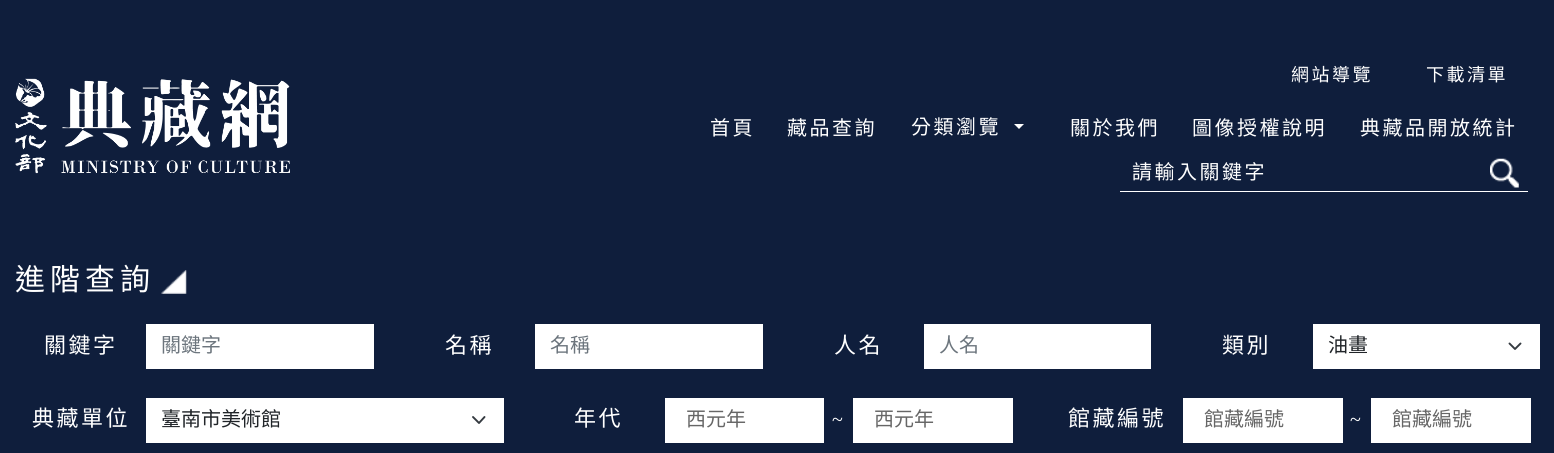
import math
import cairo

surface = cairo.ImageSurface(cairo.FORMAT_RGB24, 1554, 453)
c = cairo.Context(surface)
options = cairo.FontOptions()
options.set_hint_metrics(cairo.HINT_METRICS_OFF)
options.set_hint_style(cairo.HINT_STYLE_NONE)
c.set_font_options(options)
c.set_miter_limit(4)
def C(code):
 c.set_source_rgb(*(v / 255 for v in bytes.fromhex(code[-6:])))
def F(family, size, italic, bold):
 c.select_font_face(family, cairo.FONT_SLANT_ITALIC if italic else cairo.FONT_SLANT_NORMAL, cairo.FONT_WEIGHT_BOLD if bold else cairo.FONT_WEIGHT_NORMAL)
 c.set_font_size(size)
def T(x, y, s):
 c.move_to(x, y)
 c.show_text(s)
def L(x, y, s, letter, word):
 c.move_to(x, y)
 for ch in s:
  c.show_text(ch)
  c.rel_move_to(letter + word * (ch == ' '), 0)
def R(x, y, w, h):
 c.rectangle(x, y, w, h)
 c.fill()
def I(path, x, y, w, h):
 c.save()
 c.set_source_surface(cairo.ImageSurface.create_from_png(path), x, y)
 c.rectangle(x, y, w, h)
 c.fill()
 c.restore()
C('0f1e3c')
c.paint()
I('1.png',15,78,275,96)
F('Noto Sans CJK TC',18,0,0)
C('ffffff')
L(1291,81,'網站導覽',2.5,0)
L(1426,81,'下載清單',2.5,0)
F('Noto Sans CJK TC',20,0,0)
L(710,135,'首頁',2.5,0)
L(787,135,'藏品查詢',2.5,0)
L(911,134,'分類瀏覽',2.5,0)
c.new_path()
c.move_to(1014,124)
c.line_to(1024,124)
c.line_to(1019,129)
c.close_path()
c.fill()
L(1070,135,'關於我們',2.5,0)
L(1192,135,'圖像授權說明',2.5,0)
L(1360,135,'典藏品開放統計',2.5,0)
R(1120,191,408,1)
L(1132,179,'請輸入關鍵字',2.5,0)
I('2.png',1490,158,29,30)
F('Noto Sans CJK TC',30,0,0)
L(15,290,'進階查詢',5,0)
I('3.png',161,270,26,24)
F('Noto Sans CJK TC',22,0,0)
L(44,353,'關鍵字',2.5,0)
R(146,324,228,45)
F('Noto Sans CJK TC',20,0,0)
C('6c757d')
T(161,352,'關鍵字')
F('Noto Sans CJK TC',22,0,0)
C('ffffff')
L(445,353,'名稱',2.5,0)
R(535,324,228,45)
F('Noto Sans CJK TC',20,0,0)
C('6c757d')
T(550,352,'名稱')
F('Noto Sans CJK TC',22,0,0)
C('ffffff')
L(834,353,'人名',2.5,0)
R(924,324,227,45)
F('Noto Sans CJK TC',20,0,0)
C('6c757d')
T(939,352,'人名')
F('Noto Sans CJK TC',22,0,0)
C('ffffff')
L(1222,353,'類別',2.5,0)
R(1313,324,227,45)
c.new_path()
c.move_to(1509.5,343.5)
c.line_to(1515,349)
c.line_to(1520.5,343.5)
C('343a40')
c.set_line_width(1.9)
c.set_line_cap(cairo.LINE_CAP_ROUND)
c.set_line_join(cairo.LINE_JOIN_ROUND)
c.stroke()
F('Noto Sans CJK TC',20,0,0)
C('212529')
T(1328,352,'油畫')
F('Noto Sans CJK TC',22,0,0)
C('ffffff')
L(32,426,'典藏單位',2.5,0)
R(146,398,358,45)
c.new_path()
c.move_to(473,417)
c.line_to(479,423)
c.line_to(484.5,417)
C('343a40')
c.stroke()
F('Noto Sans CJK TC',20,0,0)
C('212529')
T(161,426,'臺南市美術館')
F('Noto Sans CJK TC',22,0,0)
C('ffffff')
L(574,426,'年代',2.5,0)
R(665,398,159,45)
F('Noto Sans CJK TC',20,0,0)
C('666666')
T(686,426,'西元年')
F('Liberation Serif',20,0,0)
C('ffffff')
L(832,426,'~',2.5,0)
R(853,398,160,45)
F('Noto Sans CJK TC',20,0,0)
C('666666')
T(874,426,'西元年')
F('Noto Sans CJK TC',22,0,0)
C('ffffff')
L(1068,426,'館藏編號',2.5,0)
R(1183,398,160,45)
F('Noto Sans CJK TC',20,0,0)
C('666666')
T(1204,426,'館藏編號')
F('Liberation Serif',20,0,0)
C('ffffff')
L(1350,426,'~',2.5,0)
R(1371,398,160,45)
F('Noto Sans CJK TC',20,0,0)
C('666666')
T(1392,426,'館藏編號')
surface.write_to_png('o.png')
